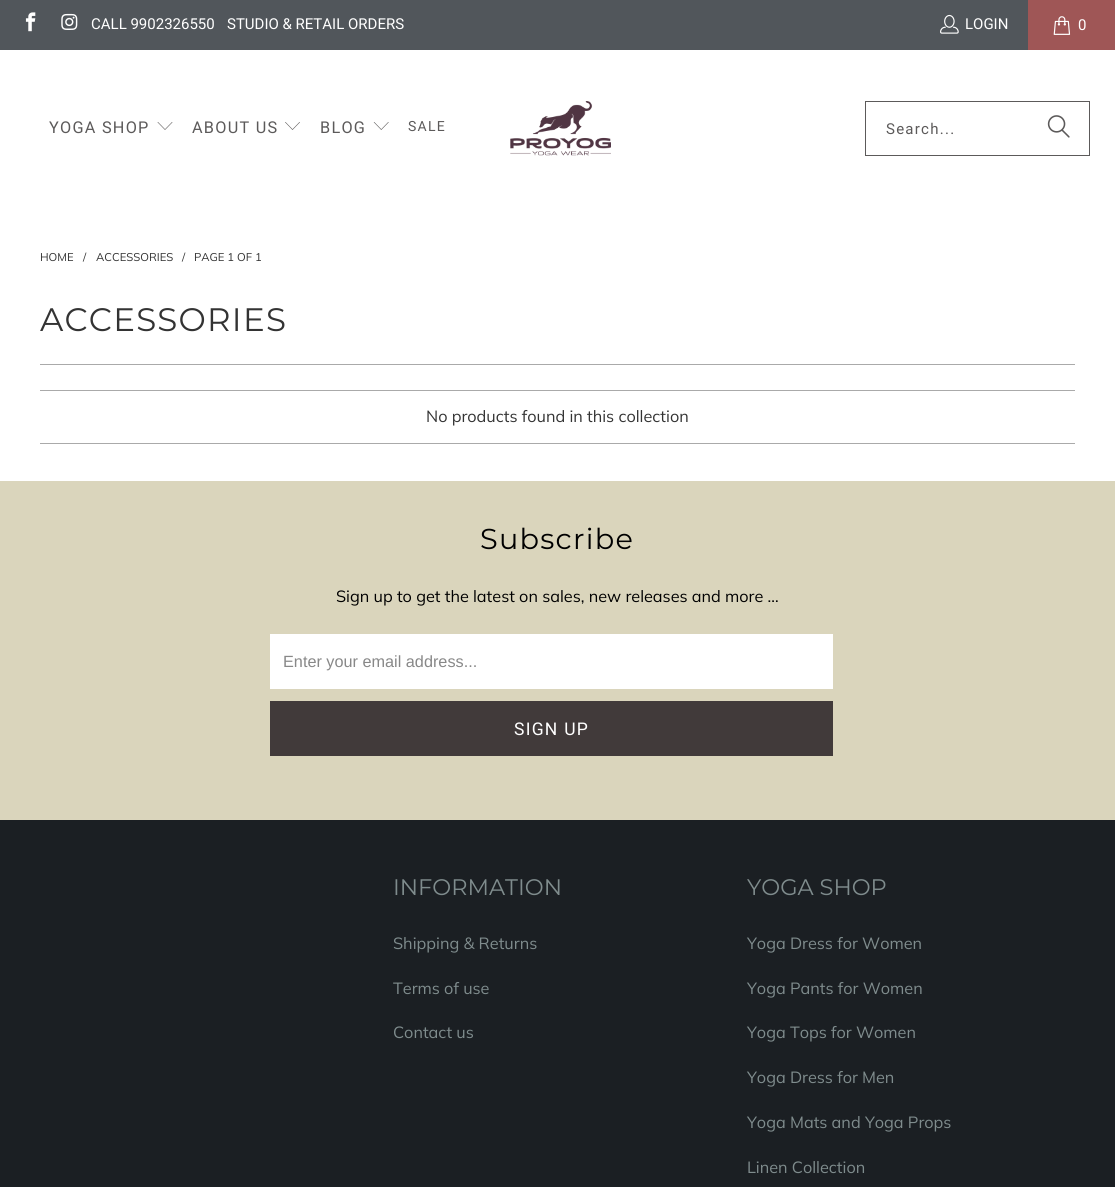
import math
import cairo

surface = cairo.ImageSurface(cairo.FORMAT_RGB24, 1115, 1187)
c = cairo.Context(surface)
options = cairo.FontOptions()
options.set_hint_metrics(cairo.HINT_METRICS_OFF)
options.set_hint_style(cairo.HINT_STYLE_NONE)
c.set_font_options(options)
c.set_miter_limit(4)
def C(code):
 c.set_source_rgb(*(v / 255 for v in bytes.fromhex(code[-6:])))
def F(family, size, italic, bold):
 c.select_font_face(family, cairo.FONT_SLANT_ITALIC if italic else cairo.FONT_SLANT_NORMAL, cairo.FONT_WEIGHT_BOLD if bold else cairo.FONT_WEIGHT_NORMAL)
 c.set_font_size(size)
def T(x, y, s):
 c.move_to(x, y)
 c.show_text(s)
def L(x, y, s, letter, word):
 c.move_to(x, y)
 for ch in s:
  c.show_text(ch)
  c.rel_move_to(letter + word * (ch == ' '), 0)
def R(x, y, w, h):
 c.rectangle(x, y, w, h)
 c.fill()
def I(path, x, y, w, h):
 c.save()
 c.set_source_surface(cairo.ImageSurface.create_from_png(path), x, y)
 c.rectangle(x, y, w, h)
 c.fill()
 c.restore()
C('ffffff')
c.paint()
C('51565b')
R(0,0,1028,50)
I('1.png',25,12,11,20)
I('2.png',61,13,17,17)
F('Roboto',15,0,0)
C('ffffff')
T(91,29,'CALL 9902326550')
T(227,29,'STUDIO & RETAIL ORDERS')
I('3.png',940,14,19,20)
T(965,29,'LOGIN')
C('9f5656')
R(1028,0,87,50)
I('4.png',1053,16,18,19)
C('ffffff')
T(1078,30,'0')
F('Roboto',16.25,0,0)
C('5c5a5a')
L(49,133,'YOGA SHOP',1.25,0)
I('5.png',157,122,16,8)
L(192,133,'ABOUT US',1.25,0)
I('6.png',285,122,15,8)
L(320,133,'BLOG',1.25,0)
I('7.png',373,122,16,8)
F('Roboto',14,0,0)
L(408,131,'SALE',1.25,0)
I('8.png',510,101,101,55)
c.rectangle(865.5,101.5,224,54)
c.set_line_width(1)
c.stroke()
F('Roboto',15,0,0)
L(886,134,'Search...',1.25,0)
I('9.png',1047,115,23,23)
F('Muli',11.25,0,0)
C('333333')
T(40,261,'HOME')
T(83,261,'/')
T(96,261,'ACCESSORIES')
T(182,261,'/')
T(194,261,'PAGE 1 OF 1')
F('Montserrat',32.5,0,0)
L(40,331,'ACCESSORIES',1.25,0)
C('aaaaaa')
R(40,364,1035,1)
R(40,390,1035,1)
R(40,443,1035,1)
F('Muli',16.25,0,0)
C('333333')
T(426,422,'No products found in this collection')
C('dad5bc')
R(0,481,1115,339)
F('Montserrat',28.75,0,0)
C('000000')
L(480,549,'Subscribe',1.25,0)
F('Muli',16.25,0,0)
T(336,602,'Sign up to get the latest on sales, new releases and more …')
C('ffffff')
R(270,634,563,55)
F('Liberation Sans',16.25,0,0)
C('888888')
T(283,667,'Enter your email address...')
C('413a3a')
R(270,701,563,55)
F('Roboto',17.5,0,0)
C('ffffff')
L(514,735,'SIGN UP',1.25,0)
C('1b1f23')
R(0,820,1115,367)
F('Montserrat',22.5,0,0)
C('7f8c8d')
T(393,895,'INFORMATION')
F('Muli',16.25,0,0)
T(393,949,'Shipping & Returns')
T(393,994,'Terms of use')
T(393,1038,'Contact us')
F('Montserrat',22.5,0,0)
T(747,895,'YOGA SHOP')
F('Muli',16.25,0,0)
T(747,949,'Yoga Dress for Women')
T(747,994,'Yoga Pants for Women')
T(747,1038,'Yoga Tops for Women')
T(747,1083,'Yoga Dress for Men')
T(747,1128,'Yoga Mats and Yoga Props')
T(747,1173,'Linen Collection')
surface.write_to_png('o.png')
